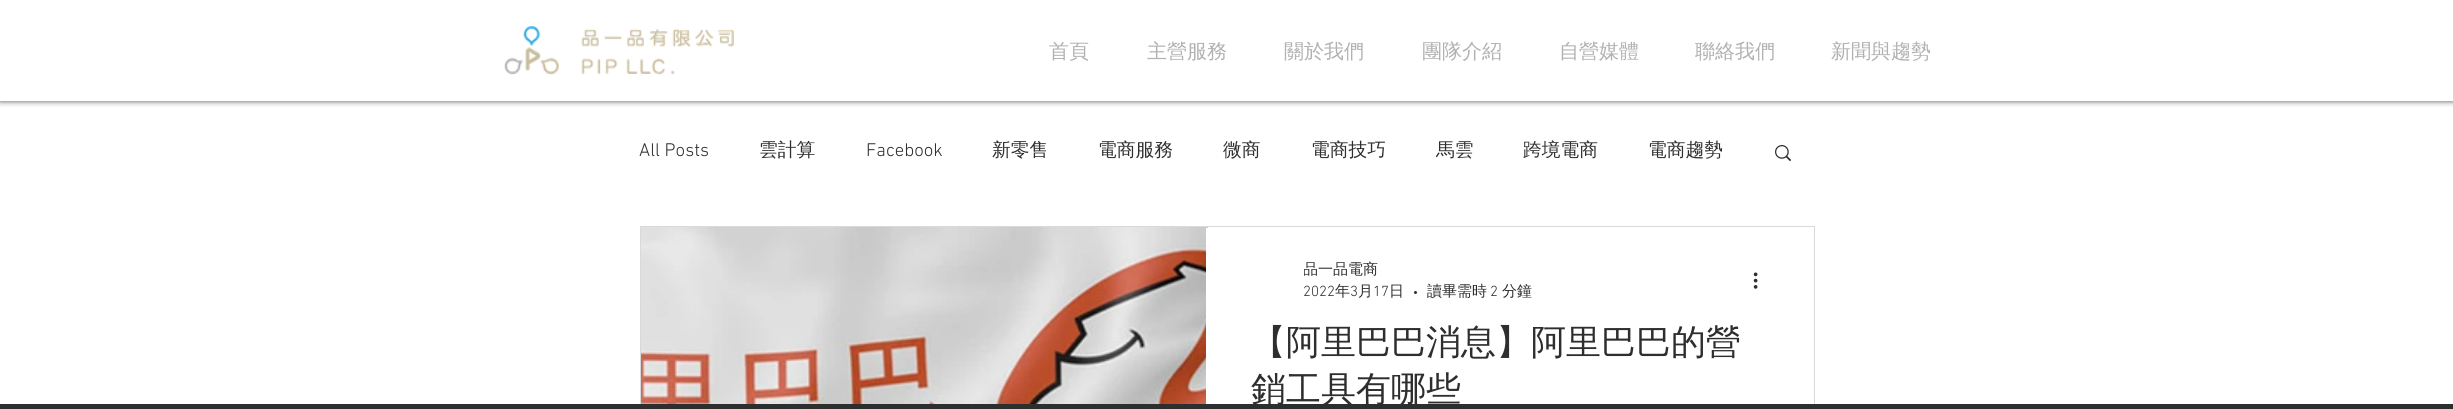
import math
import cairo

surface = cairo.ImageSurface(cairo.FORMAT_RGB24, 2453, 409)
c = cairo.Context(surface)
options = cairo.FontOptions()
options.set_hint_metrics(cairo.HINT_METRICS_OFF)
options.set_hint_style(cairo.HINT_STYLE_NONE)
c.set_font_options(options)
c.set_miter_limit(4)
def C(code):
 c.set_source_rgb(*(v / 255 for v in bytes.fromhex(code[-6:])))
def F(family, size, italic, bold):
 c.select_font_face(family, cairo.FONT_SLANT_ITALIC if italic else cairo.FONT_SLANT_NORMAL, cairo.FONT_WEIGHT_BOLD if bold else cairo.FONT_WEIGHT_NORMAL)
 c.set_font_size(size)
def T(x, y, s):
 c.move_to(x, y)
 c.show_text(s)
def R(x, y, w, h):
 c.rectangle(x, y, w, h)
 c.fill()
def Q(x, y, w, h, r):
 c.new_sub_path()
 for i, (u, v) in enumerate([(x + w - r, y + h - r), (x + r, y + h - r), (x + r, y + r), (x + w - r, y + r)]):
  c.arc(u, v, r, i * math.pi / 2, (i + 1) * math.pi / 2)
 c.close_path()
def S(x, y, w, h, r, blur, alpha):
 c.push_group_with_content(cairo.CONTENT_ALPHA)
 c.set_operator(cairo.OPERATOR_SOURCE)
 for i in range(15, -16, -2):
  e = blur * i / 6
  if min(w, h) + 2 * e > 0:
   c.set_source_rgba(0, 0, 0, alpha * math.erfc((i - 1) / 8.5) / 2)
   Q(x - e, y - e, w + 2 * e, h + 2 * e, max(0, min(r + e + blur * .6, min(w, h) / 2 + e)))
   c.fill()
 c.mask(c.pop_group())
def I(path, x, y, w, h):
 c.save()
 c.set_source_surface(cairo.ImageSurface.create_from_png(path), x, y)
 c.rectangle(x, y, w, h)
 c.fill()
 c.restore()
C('ffffff')
c.paint()
c.save()
c.rectangle(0,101,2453,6)
c.clip()
C('000000')
S(0,0,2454,101,0,3,.7)
c.restore()
I('1.png',504,26,230,49)
F('WenQuanYi Zen Hei Medium',20,0,0)
C('b1b1b2')
T(1049,58,'首頁')
T(1147,58,'主營服務')
T(1284,58,'關於我們')
T(1422,58,'團隊介紹')
T(1559,58,'自營媒體')
T(1695,58,'聯絡我們')
T(1831,58,'新聞與趨勢')
F('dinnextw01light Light',18.75,0,0)
C('2f2e2e')
T(639,156,'All Posts')
F('WenQuanYi Zen Hei Medium',18.75,0,0)
T(759,156,'雲計算')
F('dinnextw01light Light',18.75,0,0)
T(866,156,'Facebook')
F('WenQuanYi Zen Hei Medium',18.75,0,0)
T(992,156,'新零售')
T(1098,156,'電商服務')
T(1223,156,'微商')
T(1311,156,'電商技巧')
T(1436,156,'馬雲')
T(1523,156,'跨境電商')
T(1648,156,'電商趨勢')
I('2.png',1775,145,16,16)
c.rectangle(640.5,226.5,1174,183)
C('d9d9d9')
c.set_line_width(1)
c.stroke()
I('4.png',1206,227,2,1)
I('3.png',641,227,567,177)
C('ffffff')
R(1206,228,2,176)
c.save()
c.rectangle(1304,259,75,21)
c.clip()
F('WenQuanYi Zen Hei Medium',15,0,0)
C('2f2e2e')
T(1303,274,'品一品電商')
c.restore()
F('dinnextw01light Light',15,0,0)
C('2f2e2e')
T(1303,296,'2022')
F('WenQuanYi Zen Hei Medium',15,0,0)
T(1335,296,'年')
F('dinnextw01light Light',15,0,0)
T(1350,296,'3')
F('WenQuanYi Zen Hei Medium',15,0,0)
T(1358,296,'月')
F('dinnextw01light Light',15,0,0)
T(1373,296,'17')
F('WenQuanYi Zen Hei Medium',15,0,0)
T(1389,296,'日')
c.new_path()
c.arc(1415.5,292.5,1.5,0,2 * math.pi)
c.fill()
T(1427,296,'讀畢需時')
F('dinnextw01light Light',15,0,0)
T(1490,296,'2')
F('WenQuanYi Zen Hei Medium',15,0,0)
T(1502,296,'分鐘')
I('5.png',1753,272,5,17)
F('WenQuanYi Zen Hei Medium',35,0,0)
T(1251,354,'【阿里巴巴消息】阿里巴巴的營')
T(1251,401,'銷工具有哪些')
R(0,404,2453,5)
surface.write_to_png('o.png')
